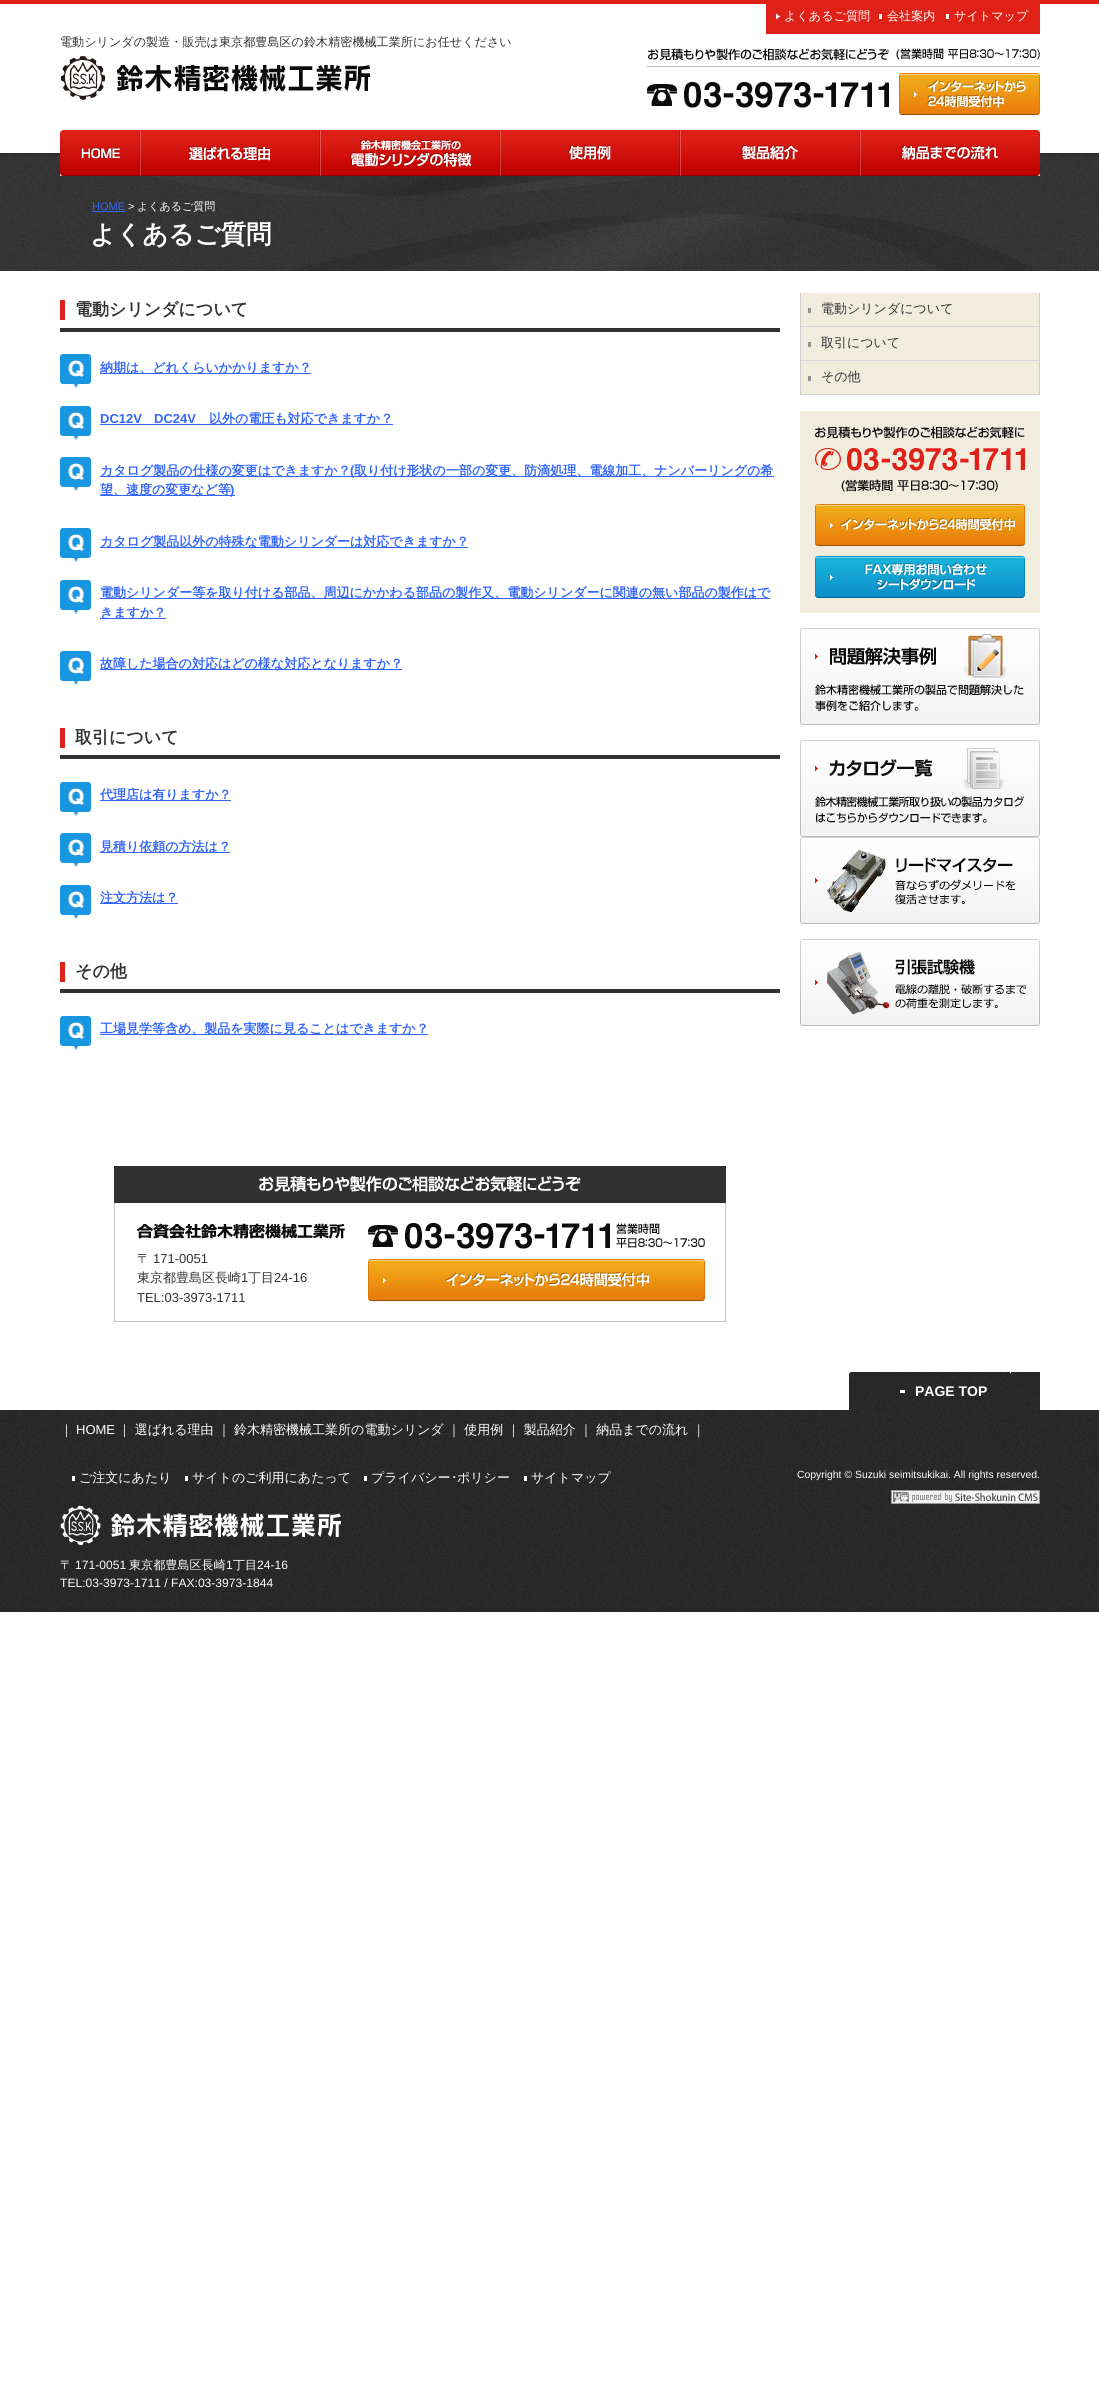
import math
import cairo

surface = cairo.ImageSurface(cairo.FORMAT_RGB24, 1099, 2386)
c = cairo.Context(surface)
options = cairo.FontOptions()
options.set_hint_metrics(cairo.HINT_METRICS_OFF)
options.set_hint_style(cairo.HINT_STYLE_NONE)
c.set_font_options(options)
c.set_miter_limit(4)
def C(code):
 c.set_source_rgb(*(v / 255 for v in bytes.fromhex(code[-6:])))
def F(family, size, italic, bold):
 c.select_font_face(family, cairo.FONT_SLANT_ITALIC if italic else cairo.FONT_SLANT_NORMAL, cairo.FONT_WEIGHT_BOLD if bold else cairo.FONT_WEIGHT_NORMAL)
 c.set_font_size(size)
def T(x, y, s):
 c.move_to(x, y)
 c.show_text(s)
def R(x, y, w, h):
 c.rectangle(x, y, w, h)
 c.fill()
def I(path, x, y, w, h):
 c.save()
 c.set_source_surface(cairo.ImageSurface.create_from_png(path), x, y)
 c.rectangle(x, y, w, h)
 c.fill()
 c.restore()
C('ffffff')
c.paint()
C('df2118')
R(0,0,1099,4)
R(766,4,274,30)
I('1.png',776,14,4,5)
F('WenQuanYi Zen Hei Medium',12.1,0,0)
C('ffffff')
T(784,20,'よくあるご質問')
R(879,14,3,5)
T(887,20,'会社案内')
R(946,14,3,5)
T(954,20,'サイトマップ')
C('333333')
T(60,46,'電動シリンダの製造・販売は東京都豊島区の鈴木精密機械工業所にお任せください')
I('2.png',60,56,310,44)
I('3.png',647,48,393,19)
I('4.png',647,82,242,26)
I('5.png',899,73,141,42)
I('6.png',0,153,1099,118)
I('7.png',60,130,80,46)
I('8.png',140,130,180,46)
I('9.png',320,130,180,46)
I('10.png',500,130,180,46)
I('11.png',680,130,180,46)
I('12.png',860,130,180,46)
I('13.png',60,176,980,95)
F('Liberation Sans',11,0,0)
C('3366ff')
T(92,210,'HOME')
R(92,211,33,1)
C('ffffff')
T(128,210,'>')
F('WenQuanYi Zen Hei Medium',11,0,0)
T(137,210,'よくあるご質問')
F('WenQuanYi Zen Hei',25.5,0,1)
T(90,243,'よくあるご質問')
C('df2118')
R(60,300,5,20)
C('313131')
R(60,328,720,4)
F('WenQuanYi Zen Hei',17,0,1)
C('333333')
T(75,315,'電動シリンダについて')
I('14.png',60,354,31,34)
C('3366ff')
R(100,373,211,1)
F('WenQuanYi Zen Hei',13,0,1)
T(100,372,'納期は、どれくらいかかりますか？')
I('14.png',60,406,31,34)
F('Liberation Sans',13,0,1)
T(100,423,'DC12V')
R(100,424,293,1)
T(154,423,'DC24V')
F('WenQuanYi Zen Hei',13,0,1)
T(209,423,'以外の電圧も対応できますか？')
I('14.png',60,457,31,34)
R(100,476,674,1)
T(100,475,'カタログ製品の仕様の変更はできますか？')
F('Liberation Sans',13,0,1)
T(350,475,'(')
F('WenQuanYi Zen Hei',13,0,1)
T(354,475,'取り付け形状の一部の変更、防滴処理、電線加工、ナンバーリングの希')
R(100,495,135,1)
T(100,494,'望、速度の変更など等')
F('Liberation Sans',13,0,1)
T(230,494,')')
I('14.png',60,528,31,34)
R(100,547,368,1)
F('WenQuanYi Zen Hei',13,0,1)
T(100,546,'カタログ製品以外の特殊な電動シリンダーは対応できますか？')
I('14.png',60,580,31,34)
R(100,598,670,1)
T(100,597,'電動シリンダー等を取り付ける部品、周辺にかかわる部品の製作又、電動シリンダーに関連の無い部品の製作はで')
R(100,618,66,1)
T(100,617,'きますか？')
I('14.png',60,651,31,34)
R(100,669,302,1)
T(100,668,'故障した場合の対応はどの様な対応となりますか？')
C('df2118')
R(60,728,5,20)
C('313131')
R(60,755,720,4)
F('WenQuanYi Zen Hei',17,0,1)
C('333333')
T(75,743,'取引について')
I('14.png',60,782,31,34)
C('3366ff')
R(100,800,131,1)
F('WenQuanYi Zen Hei',13,0,1)
T(100,799,'代理店は有りますか？')
I('14.png',60,833,31,34)
R(100,852,130,1)
T(100,851,'見積り依頼の方法は？')
I('14.png',60,885,31,34)
R(100,903,78,1)
T(100,902,'注文方法は？')
C('df2118')
R(60,962,5,20)
C('313131')
R(60,989,720,4)
F('WenQuanYi Zen Hei',17,0,1)
C('333333')
T(75,977,'その他')
I('14.png',60,1016,31,34)
C('3366ff')
R(100,1034,328,1)
F('WenQuanYi Zen Hei',13,0,1)
T(100,1033,'工場見学等含め、製品を実際に見ることはできますか？')
I('15.png',114,1166,612,37)
C('c5c5c5')
R(725,1203,1,119)
R(114,1321,612,1)
R(114,1203,1,119)
I('16.png',137,1223,208,16)
F('WenQuanYi Zen Hei Medium',13,0,0)
C('333333')
T(137,1263,'〒')
F('Liberation Sans',13,0,0)
T(153,1263,'171-0051')
F('WenQuanYi Zen Hei Medium',13,0,0)
T(137,1282,'東京都豊島区長崎')
F('Liberation Sans',13,0,0)
T(241,1282,'1')
F('WenQuanYi Zen Hei Medium',13,0,0)
T(248,1282,'丁目')
F('Liberation Sans',13,0,0)
T(274,1282,'24-16')
T(137,1302,'TEL:03-3973-1711')
I('17.png',368,1223,337,26)
I('18.png',368,1259,337,42)
C('cfcfcf')
R(1039,293,1,102)
C('d6d6d6')
R(800,326,240,1)
C('cfcfcf')
R(800,293,1,34)
C('f0ecde')
R(801,293,238,33)
C('919191')
R(808,308,3,5)
F('WenQuanYi Zen Hei Medium',13,0,0)
C('333333')
T(821,313,'電動シリンダについて')
C('d6d6d6')
R(800,360,240,1)
C('cfcfcf')
R(800,327,1,34)
C('f0ecde')
R(801,327,238,33)
C('919191')
R(808,342,3,5)
C('333333')
T(821,347,'取引について')
C('d6d6d6')
R(800,394,240,1)
C('cfcfcf')
R(800,361,1,34)
C('f0ecde')
R(801,361,238,33)
C('919191')
R(808,376,3,5)
C('333333')
T(821,381,'その他')
C('f0ecde')
R(800,411,240,202)
I('19.png',815,426,210,66)
I('20.png',815,504,210,42)
I('21.png',815,556,210,42)
I('22.png',800,628,240,97)
I('23.png',800,740,240,97)
I('24.png',800,837,240,87)
I('25.png',800,939,240,87)
I('26.png',849,1372,191,38)
I('27.png',849,1372,162,3)
F('Liberation Sans',14,0,1)
C('ffffff')
T(915,1396,'PAGE TOP')
R(900,1390,5,3)
I('28.png',0,1410,1099,202)
F('WenQuanYi Zen Hei Medium',13,0,0)
T(60,1434,'｜')
F('Liberation Sans',13,0,0)
T(76,1434,'HOME')
F('WenQuanYi Zen Hei Medium',13,0,0)
T(118,1434,'｜ 選ばれる理由 ｜ 鈴木精密機械工業所の電動シリンダ ｜ 使用例 ｜ 製品紹介 ｜ 納品までの流れ ｜')
T(79,1482,'ご注文にあたり')
R(72,1476,3,5)
T(192,1482,'サイトのご利用にあたって')
R(185,1476,3,5)
T(371,1482,'プライバシー')
R(364,1476,3,5)
F('IPAGothic',13,0,0)
T(451,1482,'･')
F('WenQuanYi Zen Hei Medium',13,0,0)
T(457,1482,'ポリシー')
T(531,1482,'サイトマップ')
R(524,1476,3,5)
I('29.png',60,1505,281,41)
F('WenQuanYi Zen Hei Medium',12.1,0,0)
T(60,1569,'〒')
F('Liberation Sans',12.1,0,0)
T(75,1569,'171-0051')
F('WenQuanYi Zen Hei Medium',12.1,0,0)
T(129,1569,'東京都豊島区長崎')
F('Liberation Sans',12.1,0,0)
T(226,1569,'1')
F('WenQuanYi Zen Hei Medium',12.1,0,0)
T(233,1569,'丁目')
F('Liberation Sans',12.1,0,0)
T(257,1569,'24-16')
T(60,1587,'TEL:03-3973-1711 / FAX:03-3973-1844')
F('Liberation Sans',10.4,0,0)
T(797,1478,'Copyright © Suzuki seimitsukikai. All rights reserved.')
I('30.png',891,1490,149,14)
surface.write_to_png('o.png')
